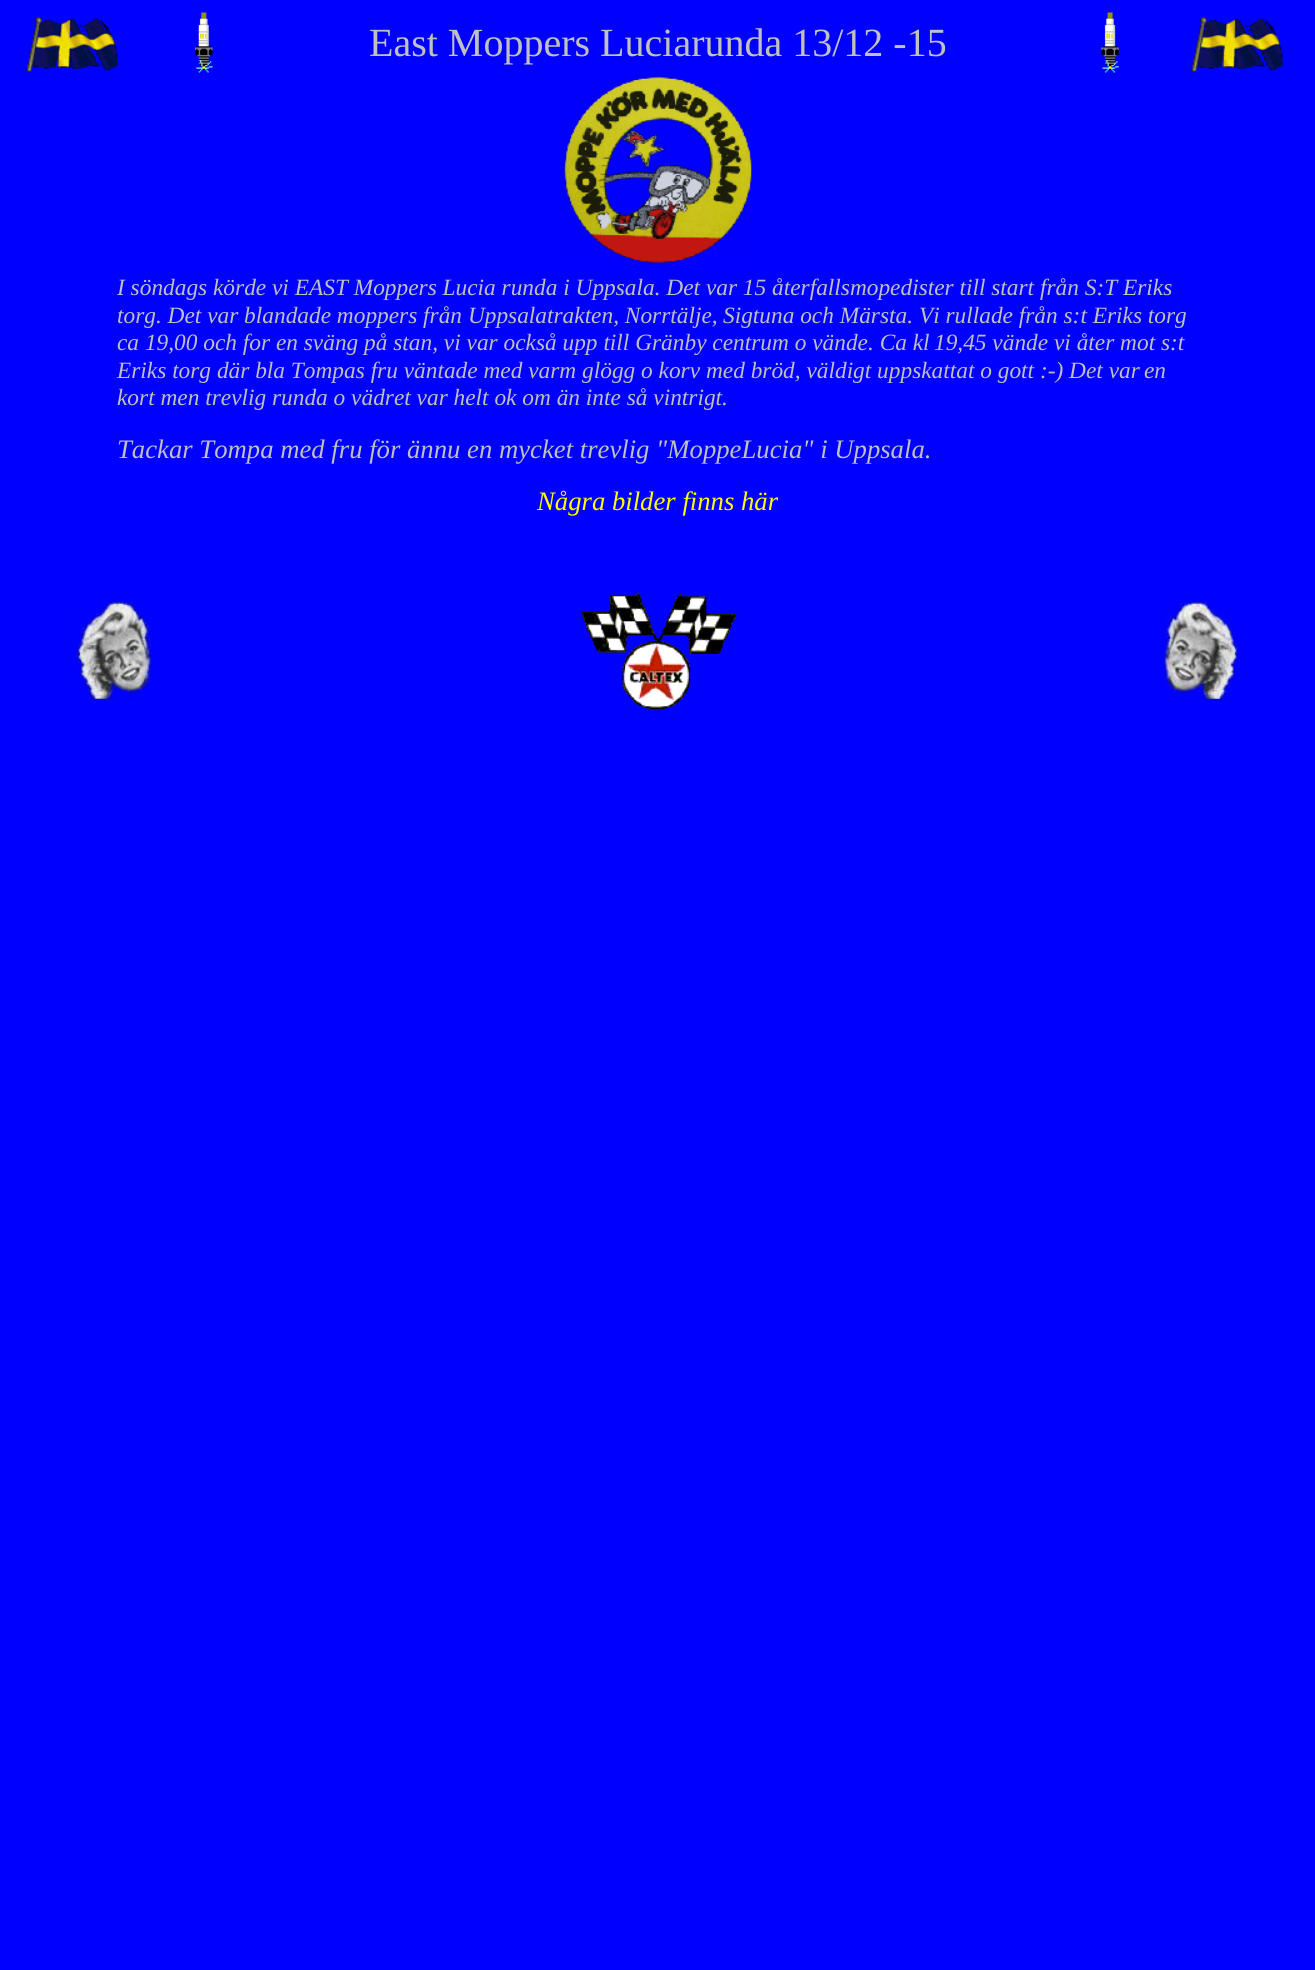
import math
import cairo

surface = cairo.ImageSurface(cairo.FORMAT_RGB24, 1315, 1970)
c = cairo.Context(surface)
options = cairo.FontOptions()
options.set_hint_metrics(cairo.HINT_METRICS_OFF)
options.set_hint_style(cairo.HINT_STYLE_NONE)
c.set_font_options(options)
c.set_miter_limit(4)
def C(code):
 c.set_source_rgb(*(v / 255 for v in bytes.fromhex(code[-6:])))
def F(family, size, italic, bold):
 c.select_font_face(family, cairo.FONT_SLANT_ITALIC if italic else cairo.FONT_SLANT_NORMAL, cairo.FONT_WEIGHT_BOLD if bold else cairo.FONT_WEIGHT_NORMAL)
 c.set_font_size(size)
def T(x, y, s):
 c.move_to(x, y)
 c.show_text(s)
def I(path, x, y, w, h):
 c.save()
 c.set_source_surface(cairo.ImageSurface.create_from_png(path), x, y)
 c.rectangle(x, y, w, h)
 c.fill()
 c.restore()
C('0000ff')
c.paint()
I('1.png',26,17,92,56)
I('2.png',194,12,19,61)
F('Liberation Serif',40,0,0)
C('c0c0c0')
T(369,56,'East Moppers Luciarunda 13/12 -15')
I('3.png',1101,12,18,61)
I('4.png',1191,17,92,56)
I('5.png',563,76,189,187)
F('Liberation Serif',23.35,1,0)
T(117,295,'I söndags körde vi EAST Moppers Lucia runda i Uppsala. Det var 15 återfallsmopedister till start från S:T Eriks')
T(117,323,'torg. Det var blandade moppers från Uppsalatrakten, Norrtälje,')
T(723,323,'Sigtuna och Märsta. Vi rullade från s:t Eriks torg')
T(117,350,'ca 19,00 och for en sväng på stan, vi var också upp till Gränby centrum o vände. Ca kl')
T(934,350,'19,45 vände vi åter mot s:t')
T(117,378,'Eriks torg där bla Tompas fru väntade med varm glögg o korv med bröd, väldigt uppskattat o gott :-) Det var')
T(1144,378,'en')
T(117,405,'kort men trevlig runda o vädret var helt ok om än inte så vintrigt.')
F('Liberation Serif',26.7,1,0)
T(117,458,'Tackar Tompa med fru för ännu en mycket trevlig "MoppeLucia" i Uppsala.')
C('ffff00')
T(537,510,'Några bilder finns här')
I('6.png',66,602,86,97)
I('7.png',581,592,156,119)
I('8.png',1163,602,81,97)
surface.write_to_png('o.png')
